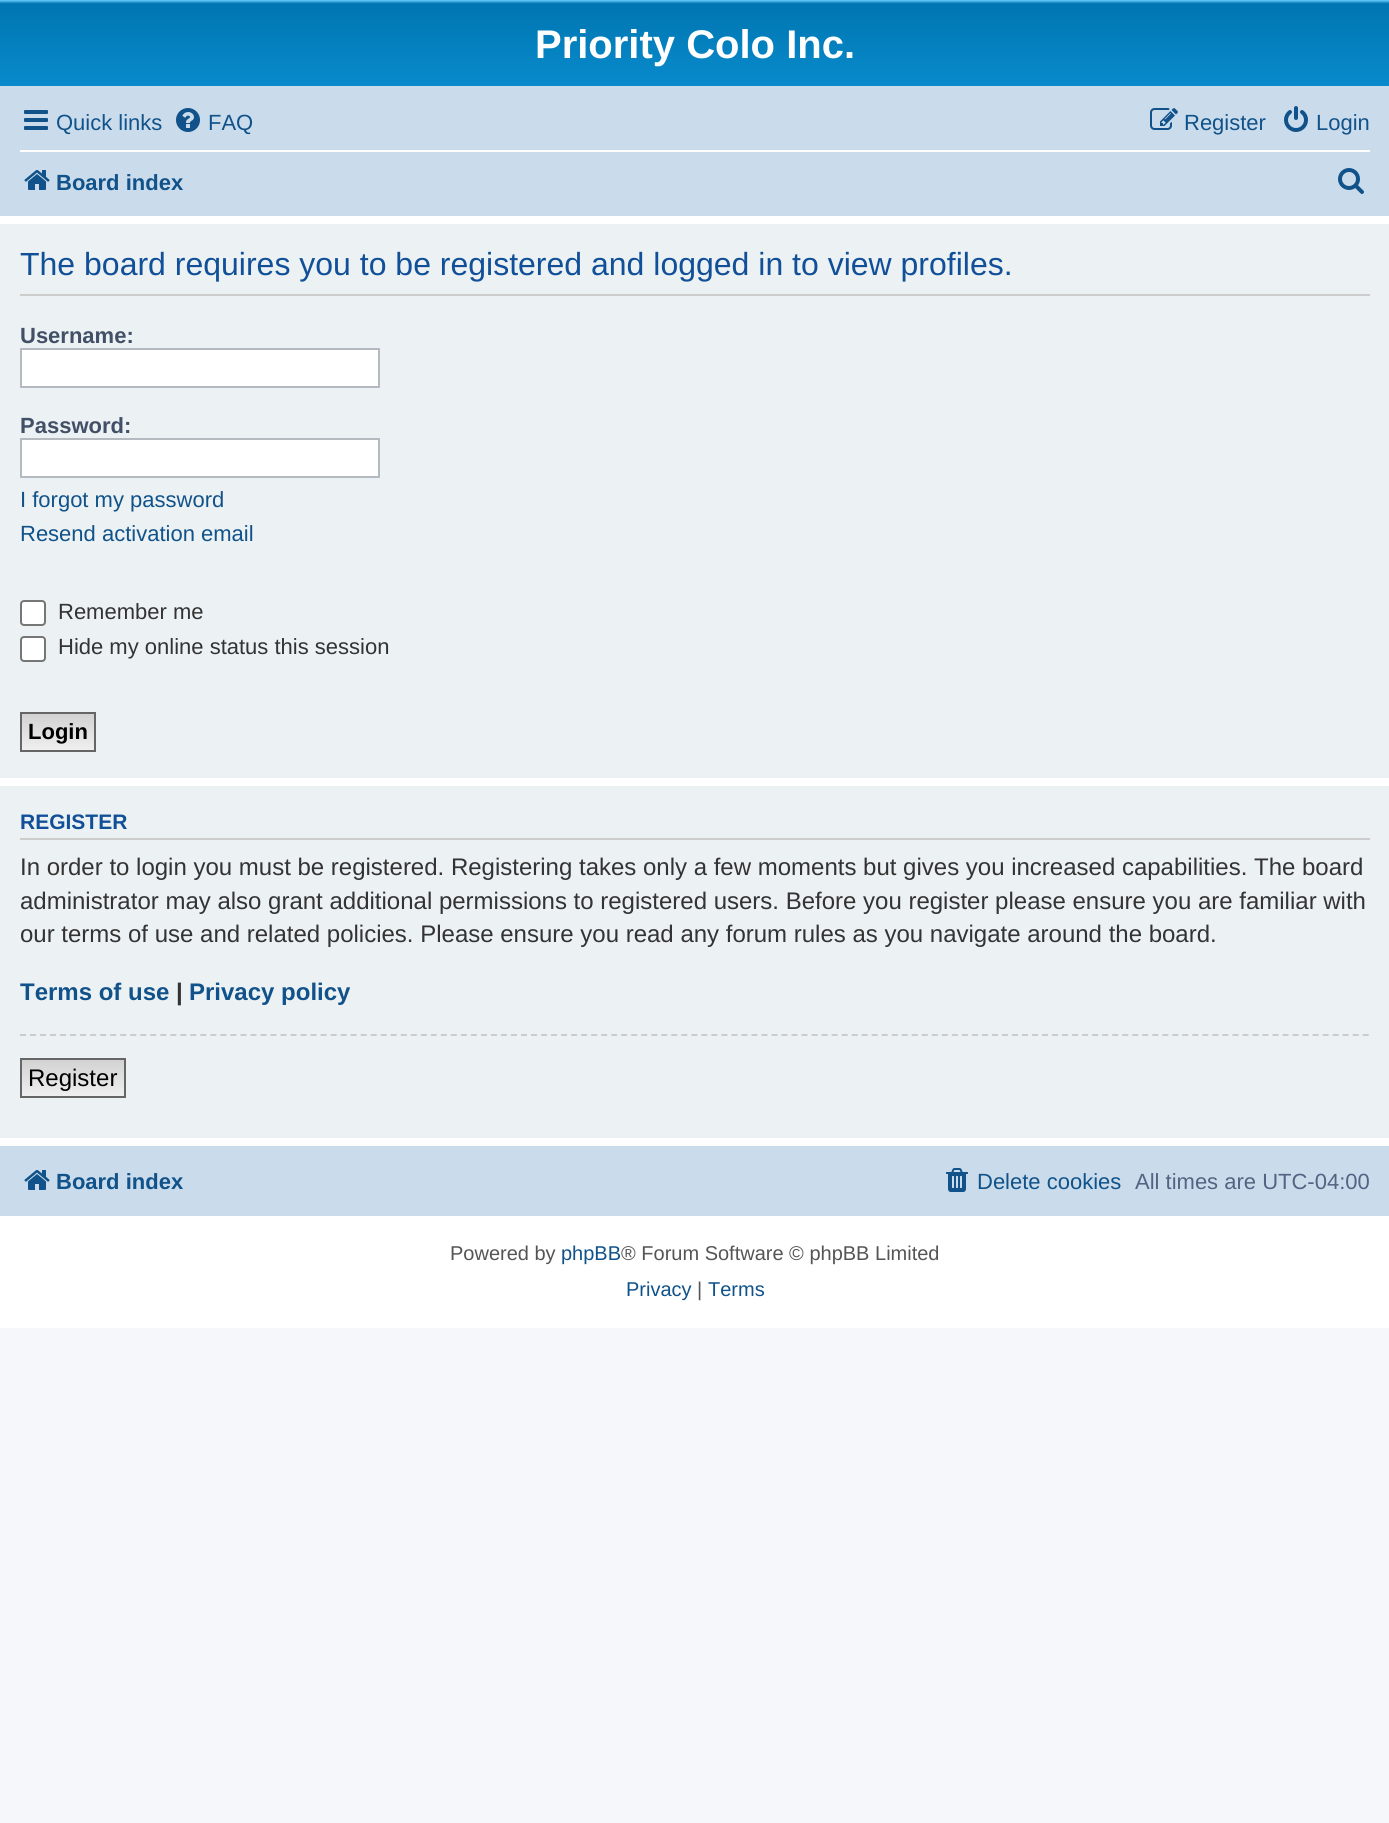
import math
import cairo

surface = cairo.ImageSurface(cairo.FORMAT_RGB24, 1389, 1823)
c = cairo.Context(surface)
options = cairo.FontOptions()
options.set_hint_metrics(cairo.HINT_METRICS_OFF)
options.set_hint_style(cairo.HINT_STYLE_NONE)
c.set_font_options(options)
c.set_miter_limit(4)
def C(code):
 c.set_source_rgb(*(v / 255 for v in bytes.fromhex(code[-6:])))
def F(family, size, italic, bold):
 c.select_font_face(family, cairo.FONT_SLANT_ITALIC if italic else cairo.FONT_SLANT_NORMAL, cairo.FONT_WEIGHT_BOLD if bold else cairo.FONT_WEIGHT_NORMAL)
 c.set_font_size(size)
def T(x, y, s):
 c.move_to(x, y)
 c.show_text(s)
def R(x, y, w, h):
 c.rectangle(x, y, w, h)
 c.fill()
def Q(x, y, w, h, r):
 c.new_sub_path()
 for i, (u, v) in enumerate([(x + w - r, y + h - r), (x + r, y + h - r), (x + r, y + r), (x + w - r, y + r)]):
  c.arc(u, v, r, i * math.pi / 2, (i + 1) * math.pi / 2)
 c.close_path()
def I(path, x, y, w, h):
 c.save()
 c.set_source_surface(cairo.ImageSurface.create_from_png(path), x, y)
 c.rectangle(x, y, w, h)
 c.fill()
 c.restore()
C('f5f7fa')
c.paint()
C('ffffff')
R(0,216,1389,1112)
gradient = cairo.LinearGradient(695,0,695,184)
gradient.add_color_stop_rgba(0,0.416,0.808,1,1)
gradient.add_color_stop_rgba(.02,0,0.463,0.694,1)
gradient.add_color_stop_rgba(1,0.071,0.639,0.922,1)
c.set_source(gradient)
R(0,0,1389,86)
F('Liberation Sans',40,0,1)
C('ffffff')
T(535,58,'Priority Colo Inc.')
C('cadceb')
R(0,86,1389,130)
I('1.png',24,110,24,20)
F('Liberation Sans',22,0,0)
C('105289')
T(56,130,'Quick links')
I('2.png',176,108,24,24)
T(208,130,'FAQ')
I('3.png',1150,108,28,22)
T(1184,130,'Register')
I('4.png',1284,106,24,26)
T(1316,130,'Login')
C('ffffff')
R(20,150,1350,2)
I('5.png',24,170,26,20)
F('Liberation Sans',22,0,1)
C('105289')
T(56,190,'Board index')
I('6.png',1338,168,26,26)
C('ecf1f3')
R(0,224,1389,554)
C('cccccc')
R(20,294,1350,2)
F('Liberation Sans',32,0,0)
C('115098')
T(20,275,'The board requires you to be registered and logged in to view profiles.')
F('Liberation Sans',22,0,1)
C('425067')
T(20,343,'Username:')
C('ffffff')
c.rectangle(21,349,358,38)
c.fill_preserve()
C('b4bac0')
c.stroke()
C('425067')
T(20,433,'Password:')
C('ffffff')
c.rectangle(21,439,358,38)
c.fill_preserve()
C('b4bac0')
c.stroke()
F('Liberation Sans',22,0,0)
C('105289')
T(20,507,'I forgot my password')
T(20,541,'Resend activation email')
C('ffffff')
Q(21,601,24,24,3)
c.fill_preserve()
C('767676')
c.stroke()
C('333333')
T(58,619,'Remember me')
C('ffffff')
Q(21,637,24,24,3)
c.fill_preserve()
C('767676')
c.stroke()
C('333333')
T(58,654,'Hide my online status this session')
gradient = cairo.LinearGradient(58,714,58,750)
gradient.add_color_stop_rgba(0,0.824,0.824,0.824,1)
gradient.add_color_stop_rgba(1,0.937,0.937,0.937,1)
c.set_source(gradient)
R(22,714,72,36)
c.rectangle(21,713,74,38)
C('666666')
c.stroke()
F('Liberation Sans',22,0,1)
C('000000')
T(28,739,'Login')
C('ecf1f3')
R(0,786,1389,352)
C('cccccc')
R(20,838,1350,2)
F('Liberation Sans',21,0,1)
C('115098')
T(20,829,'REGISTER')
F('Liberation Sans',24,0,0)
C('333333')
T(20,875,'In order to login you must be registered. Registering takes only a few moments but gives you increased capabilities. The board')
T(20,909,'administrator may also grant additional permissions to registered users. Before you register please ensure you are familiar with')
T(20,942,'our terms of use and related policies. Please ensure you read any forum rules as you navigate around the board.')
F('Liberation Sans',24,0,1)
C('105289')
T(20,1000,'Terms of use')
C('333333')
T(176,1000,'|')
C('105289')
T(189,1000,'Privacy policy')
c.new_path()
c.move_to(20,1035)
c.line_to(1370,1035)
C('cccccc')
c.set_dash([6,4.02])
c.stroke()
gradient = cairo.LinearGradient(73,1060,73,1096)
gradient.add_color_stop_rgba(0,0.824,0.824,0.824,1)
gradient.add_color_stop_rgba(1,0.937,0.937,0.937,1)
c.set_source(gradient)
R(22,1060,102,36)
c.rectangle(21,1059,104,38)
C('666666')
c.set_dash([])
c.stroke()
F('Liberation Sans',24,0,0)
C('000000')
T(28,1086,'Register')
C('cadceb')
R(0,1146,1389,70)
I('5.png',24,1170,26,20)
F('Liberation Sans',22,0,1)
C('105289')
T(56,1189,'Board index')
I('7.png',946,1168,22,24)
F('Liberation Sans',22,0,0)
T(977,1189,'Delete cookies')
C('536482')
T(1135,1189,'All times are UTC-04:00')
F('Liberation Sans',20,0,0)
C('555555')
T(450,1260,'Powered by')
C('105289')
T(561,1260,'phpBB')
C('555555')
T(621,1260,'® Forum Software © phpBB Limited')
C('105289')
T(626,1296,'Privacy')
C('555555')
T(697,1296,'|')
C('105289')
T(708,1296,'Terms')
surface.write_to_png('o.png')
